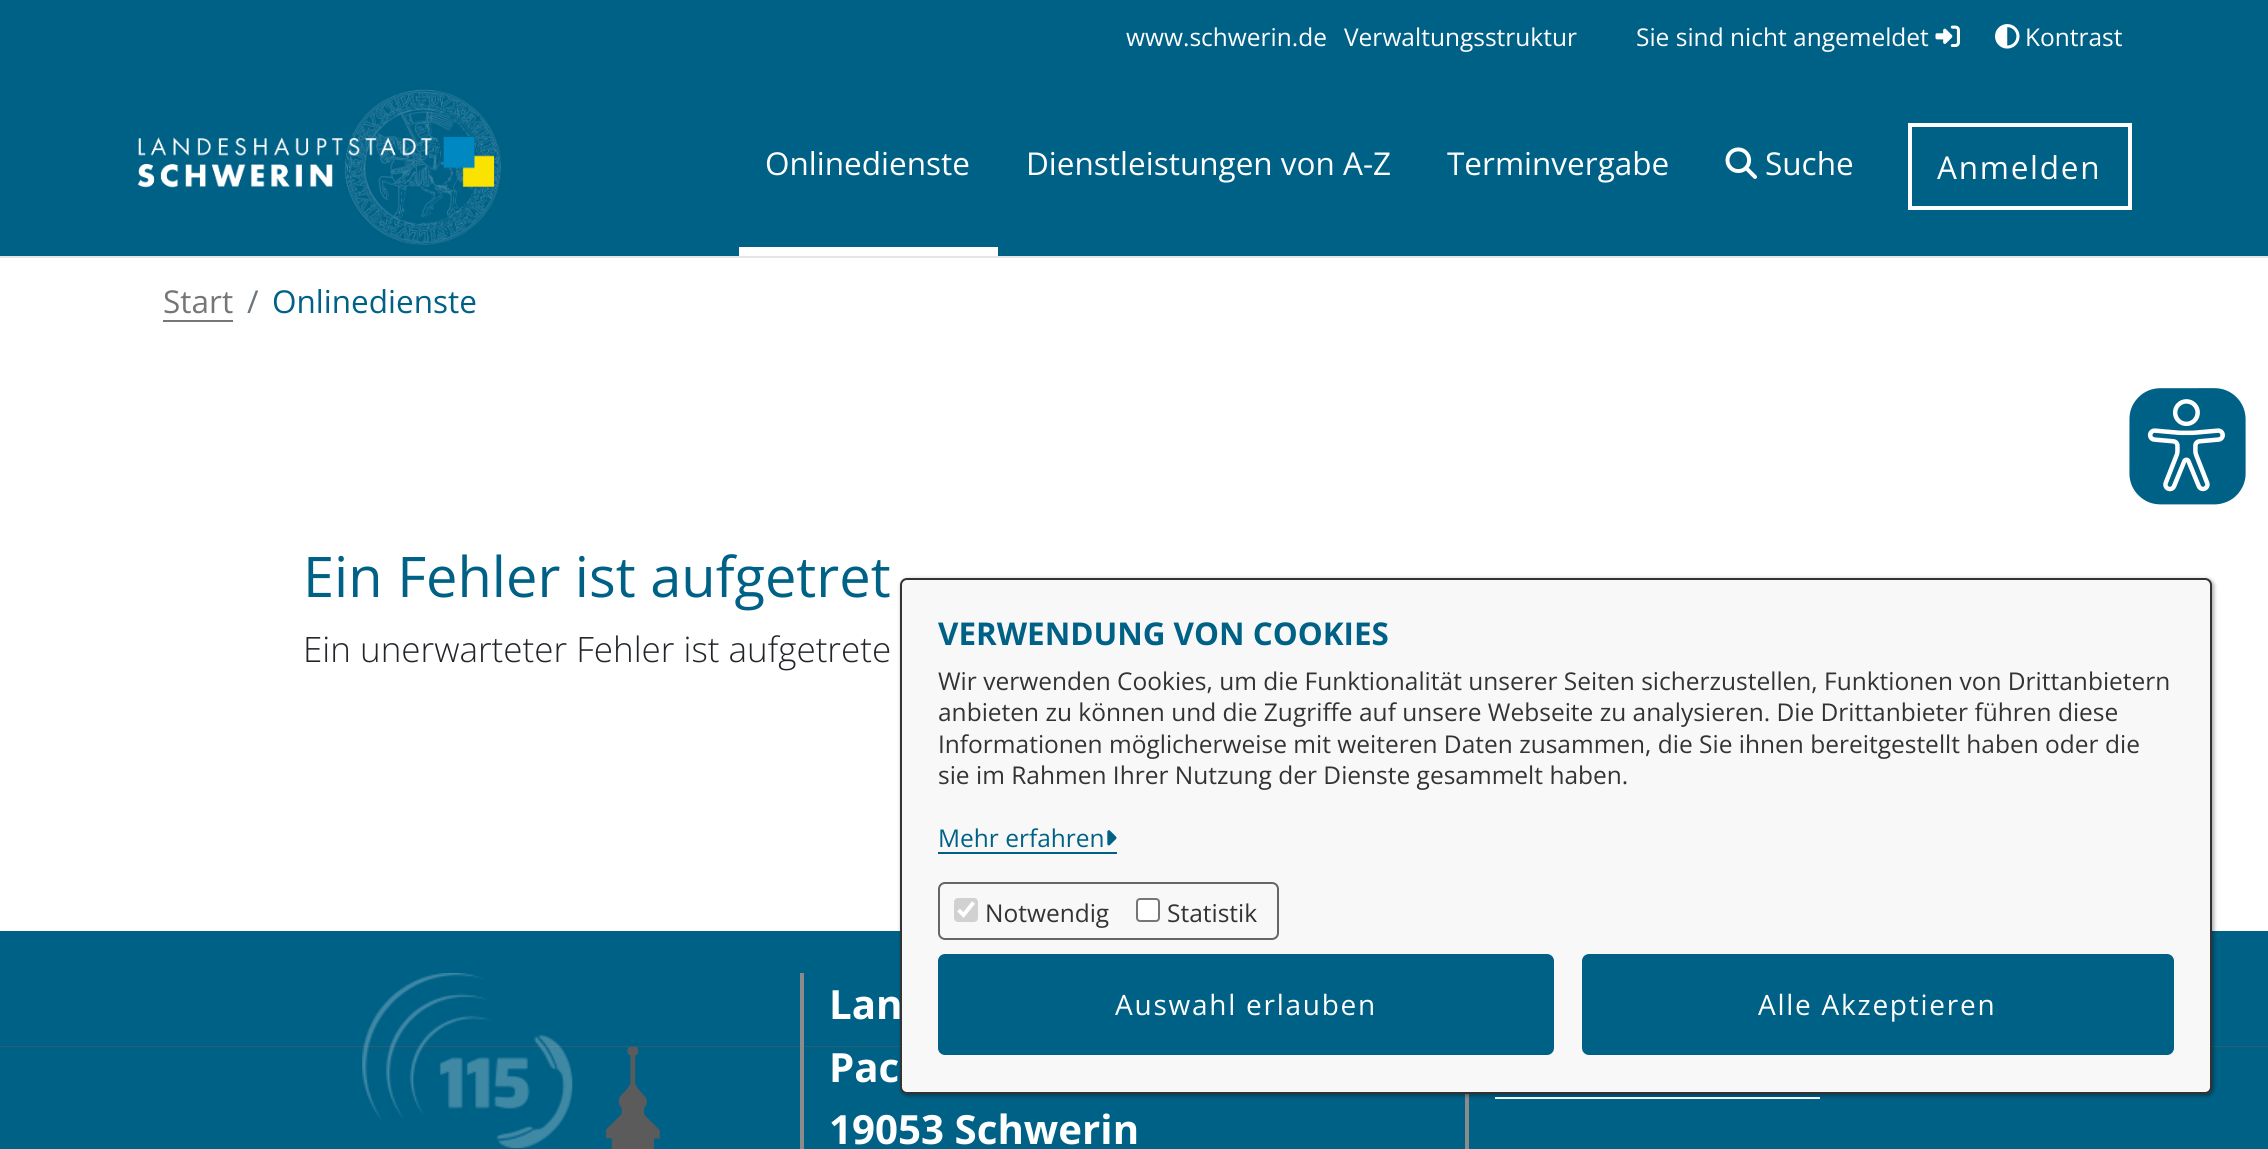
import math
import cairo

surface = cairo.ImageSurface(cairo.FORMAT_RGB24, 2268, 1149)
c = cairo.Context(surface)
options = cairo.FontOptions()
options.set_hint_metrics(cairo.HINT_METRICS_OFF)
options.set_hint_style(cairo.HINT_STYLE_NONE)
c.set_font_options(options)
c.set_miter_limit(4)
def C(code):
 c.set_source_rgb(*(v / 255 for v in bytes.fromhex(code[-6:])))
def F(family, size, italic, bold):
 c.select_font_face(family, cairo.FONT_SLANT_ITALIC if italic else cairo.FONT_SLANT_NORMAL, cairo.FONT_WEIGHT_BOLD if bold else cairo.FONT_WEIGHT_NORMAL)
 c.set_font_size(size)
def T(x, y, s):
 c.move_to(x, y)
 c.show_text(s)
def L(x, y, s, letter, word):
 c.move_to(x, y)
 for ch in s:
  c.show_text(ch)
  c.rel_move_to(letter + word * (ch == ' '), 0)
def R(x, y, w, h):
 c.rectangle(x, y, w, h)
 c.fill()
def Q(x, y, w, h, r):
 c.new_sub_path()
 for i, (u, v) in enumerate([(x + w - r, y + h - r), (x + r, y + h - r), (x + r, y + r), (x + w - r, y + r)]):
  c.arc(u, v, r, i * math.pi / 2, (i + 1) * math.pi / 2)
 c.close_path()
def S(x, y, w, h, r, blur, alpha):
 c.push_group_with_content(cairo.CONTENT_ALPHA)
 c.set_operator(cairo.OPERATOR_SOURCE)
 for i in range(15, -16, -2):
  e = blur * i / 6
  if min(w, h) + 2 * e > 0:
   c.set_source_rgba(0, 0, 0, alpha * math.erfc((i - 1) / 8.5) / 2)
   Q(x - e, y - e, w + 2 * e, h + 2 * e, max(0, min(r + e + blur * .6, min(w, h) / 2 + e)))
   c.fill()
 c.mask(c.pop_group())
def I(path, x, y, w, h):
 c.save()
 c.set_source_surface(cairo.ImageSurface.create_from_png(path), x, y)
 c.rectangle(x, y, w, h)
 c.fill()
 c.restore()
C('ffffff')
c.paint()
C('006187')
R(0,0,2268,256)
C('e6e6e6')
R(0,256,2268,2)
F('Open Sans',24.5,0,0)
C('ffffff')
T(1126,46,'www.schwerin.de')
T(1344,46,'Verwaltungsstruktur')
T(1636,46,'Sie sind nicht angemeldet')
I('1.png',1935,25,25,22)
I('2.png',1995,24,25,25)
T(2025,46,'Kontrast')
I('3.png',137,89,364,156)
R(739,247,259,9)
F('Open Sans',31.5,0,0)
T(765,175,'Onlinedienste')
T(1026,175,'Dienstleistungen von A-Z')
T(1447,175,'Terminvergabe')
I('4.png',1725,147,32,32)
T(1765,175,'Suche')
c.rectangle(1910,125,220,83)
c.set_line_width(4)
c.stroke()
L(1937,179,'Anmelden',1.75,0)
C('767676')
T(163,313,'Start')
R(163,320,70,2)
C('6c757d')
T(247,313,'/')
C('006187')
T(272,313,'Onlinedienste')
I('5.png',2129,388,117,117)
F('Open Sans',56,0,0)
T(303,597,'Ein Fehler ist aufgetret')
F('Open Sans Light',35,0,0)
C('212529')
T(303,662,'Ein unerwarteter Fehler ist aufgetrete')
C('006187')
R(0,931,2268,218)
I('7.png',0,1046,2268,103)
C('8c8b8b')
R(1465,1094,4,55)
C('ffffff')
R(1495,1097,325,2)
C('000000')
S(901,579,1313,517,7,2,.33)
C('f8f8f8')
Q(901,579,1310,514,6)
c.fill_preserve()
C('333333')
c.set_line_width(2)
c.stroke()
F('Open Sans',31.4,0,1)
C('006187')
T(938,645,'VERWENDUNG VON COOKIES')
F('Open Sans',24.5,0,0)
C('333333')
T(938,690,'Wir verwenden Cookies, um die Funktionalität unserer Seiten sicherzustellen, Funktionen von Drittanbietern')
T(938,721,'anbieten zu können und die Zugriffe auf unsere Webseite zu analysieren. Die Drittanbieter führen diese')
T(938,753,'Informationen möglicherweise mit weiteren Daten zusammen, die Sie ihnen bereitgestellt haben oder die')
T(938,784,'sie im Rahmen Ihrer Nutzung der Dienste gesammelt haben.')
C('006187')
T(938,847,'Mehr erfahren')
R(938,852,179,2)
I('6.png',1107,830,10,16)
Q(939,883,339,56,6)
C('666666')
c.stroke()
C('d1d1d1')
Q(954,898,24,24,4)
c.fill()
c.new_path()
c.move_to(958.5,910)
c.line_to(963.5,915)
c.line_to(973.5,902.5)
C('ffffff')
c.set_line_width(3.9)
c.stroke()
C('333333')
T(985,922,'Notwendig')
C('ffffff')
Q(1137,899,22,22,3)
c.fill_preserve()
C('767676')
c.set_line_width(2)
c.stroke()
C('333333')
T(1167,922,'Statistik')
C('006187')
Q(939,955,614,99,6)
c.fill_preserve()
c.stroke()
F('Open Sans',28,0,0)
C('ffffff')
L(1115,1015,'Auswahl erlauben',1.75,0)
C('006187')
Q(1583,955,590,99,6)
c.fill_preserve()
c.stroke()
C('ffffff')
L(1758,1015,'Alle Akzeptieren',1.75,0)
C('8c8b8b')
R(800,973,4,176)
I('8.png',362,973,211,175)
F('Open Sans',40.25,0,1)
C('ffffff')
T(829,1019,'Lan')
T(829,1082,'Pac')
T(829,1144,'19053 Schwerin')
surface.write_to_png('o.png')
